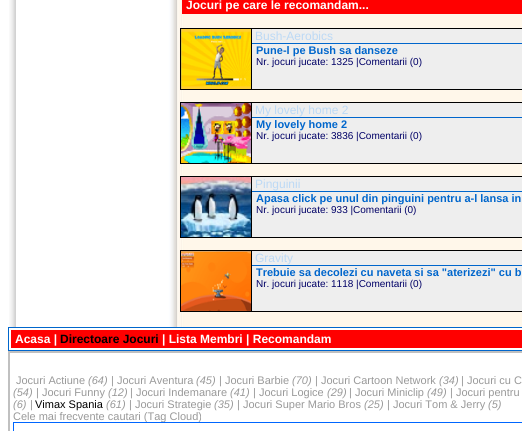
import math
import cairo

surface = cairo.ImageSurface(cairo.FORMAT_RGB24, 522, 431)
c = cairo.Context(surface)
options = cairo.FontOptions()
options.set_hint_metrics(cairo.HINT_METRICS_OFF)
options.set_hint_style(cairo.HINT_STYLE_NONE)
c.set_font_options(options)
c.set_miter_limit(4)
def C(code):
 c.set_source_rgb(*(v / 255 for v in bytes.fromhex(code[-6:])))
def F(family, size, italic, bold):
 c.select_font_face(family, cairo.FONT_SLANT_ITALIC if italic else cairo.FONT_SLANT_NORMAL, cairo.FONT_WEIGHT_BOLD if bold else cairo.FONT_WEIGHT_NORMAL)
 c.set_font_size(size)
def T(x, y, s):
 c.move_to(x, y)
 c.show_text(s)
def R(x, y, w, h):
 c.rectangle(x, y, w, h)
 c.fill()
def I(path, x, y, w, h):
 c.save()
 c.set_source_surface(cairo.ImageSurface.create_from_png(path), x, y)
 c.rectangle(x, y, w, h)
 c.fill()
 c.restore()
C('ffffff')
c.paint()
I('1.png',9,0,513,327)
C('ff0000')
R(182,0,340,14)
F('Liberation Sans',12,0,1)
C('ffffff')
T(186,9,'Jocuri pe care le recomandam...')
C('eeeeee')
R(252,29,270,60)
c.rectangle(180.5,28.5,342,61)
C('000000')
c.set_line_width(1)
c.stroke()
R(251,29,1,60)
I('2.png',181,29,70,60)
C('0066cc')
R(252,43,270,1)
F('Liberation Sans',12,0,0)
C('bcd9f5')
T(255,40,'Bush-Aerobics')
F('Liberation Sans',11,0,1)
C('0066cc')
T(256,54,'Pune-l pe Bush sa danseze')
F('Liberation Sans',10,0,0)
C('000066')
T(256,65,'Nr. jocuri jucate: 1325 |Comentarii (0)')
C('eeeeee')
R(252,103,270,60)
c.rectangle(180.5,102.5,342,61)
C('000000')
c.stroke()
R(251,103,1,60)
I('3.png',181,103,70,60)
C('0066cc')
R(252,117,270,1)
F('Liberation Sans',12,0,0)
C('bcd9f5')
T(255,114,'My lovely home 2')
F('Liberation Sans',11,0,1)
C('0066cc')
T(256,128,'My lovely home 2')
F('Liberation Sans',10,0,0)
C('000066')
T(256,139,'Nr. jocuri jucate: 3836 |Comentarii (0)')
C('eeeeee')
R(252,177,270,60)
c.rectangle(180.5,176.5,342,61)
C('000000')
c.stroke()
R(251,177,1,60)
I('4.png',181,177,70,60)
C('0066cc')
R(252,191,270,1)
F('Liberation Sans',12,0,0)
C('bcd9f5')
T(255,188,'Pinguinii')
F('Liberation Sans',11,0,1)
C('0066cc')
T(256,202,'Apasa click pe unul din pinguini pentru a-l lansa in')
F('Liberation Sans',10,0,0)
C('000066')
T(256,213,'Nr. jocuri jucate: 933 |Comentarii (0)')
C('eeeeee')
R(252,251,270,60)
c.rectangle(180.5,250.5,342,61)
C('000000')
c.stroke()
R(251,251,1,60)
I('5.png',181,251,70,60)
C('0066cc')
R(252,265,270,1)
F('Liberation Sans',12,0,0)
C('bcd9f5')
T(255,262,'Gravity')
F('Liberation Sans',11,0,1)
C('0066cc')
T(256,276,'Trebuie sa decolezi cu naveta si sa "aterizezi" cu b')
F('Liberation Sans',10,0,0)
C('000066')
T(256,287,'Nr. jocuri jucate: 1118 |Comentarii (0)')
c.rectangle(8.5,327.5,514,23)
C('0066cc')
c.stroke()
C('ff0000')
R(11,330,511,18)
F('Liberation Sans',12,0,1)
C('ffffff')
T(15,343,'Acasa |')
C('000000')
T(60,343,'Directoare Jocuri')
C('ffffff')
T(162,343,'| Lista Membri | Recomandam')
c.rectangle(8.5,351.5,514,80)
C('c0c0c0')
c.stroke()
c.rectangle(9.5,352.5,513,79)
c.stroke()
F('Liberation Sans',11,0,0)
C('999999')
T(16,384,'Jocuri Actiune')
F('Liberation Sans',11,1,0)
T(88,384,'(64)')
F('Liberation Sans',11,0,0)
T(111,384,'| Jocuri Aventura')
F('Liberation Sans',11,1,0)
T(196,384,'(45)')
F('Liberation Sans',11,0,0)
T(219,384,'| Jocuri Barbie')
F('Liberation Sans',11,1,0)
T(292,384,'(70)')
F('Liberation Sans',11,0,0)
T(315,384,'| Jocuri Cartoon Network')
F('Liberation Sans',11,1,0)
T(439,384,'(34)')
F('Liberation Sans',11,0,0)
T(461,384,'| Jocuri cu C')
F('Liberation Sans',11,1,0)
T(13,396,'(54)')
F('Liberation Sans',11,0,0)
T(36,396,'| Jocuri Funny')
F('Liberation Sans',11,1,0)
T(108,396,'(12)')
F('Liberation Sans',11,0,0)
T(130,396,'| Jocuri Indemanare')
F('Liberation Sans',11,1,0)
T(230,396,'(41)')
F('Liberation Sans',11,0,0)
T(253,396,'| Jocuri Logice')
F('Liberation Sans',11,1,0)
T(327,396,'(29)')
F('Liberation Sans',11,0,0)
T(349,396,'| Jocuri Miniclip')
F('Liberation Sans',11,1,0)
T(427,396,'(49)')
F('Liberation Sans',11,0,0)
T(450,396,'| Jocuri pentru')
F('Liberation Sans',11,1,0)
T(13,408,'(6)')
F('Liberation Sans',11,0,0)
T(30,408,'|')
C('000000')
T(35,408,'Vimax Spania')
F('Liberation Sans',11,1,0)
C('999999')
T(106,408,'(61)')
F('Liberation Sans',11,0,0)
T(129,408,'| Jocuri Strategie')
F('Liberation Sans',11,1,0)
T(214,408,'(35)')
F('Liberation Sans',11,0,0)
T(237,408,'| Jocuri Super Mario Bros')
F('Liberation Sans',11,1,0)
T(364,408,'(25)')
F('Liberation Sans',11,0,0)
T(387,408,'| Jocuri Tom & Jerry')
F('Liberation Sans',11,1,0)
T(488,408,'(5)')
F('Liberation Sans',11,0,0)
T(13,420,'Cele mai frecvente cautari (Tag Cloud)')
c.rectangle(13.5,422.5,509,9)
C('0066ff')
c.stroke()
surface.write_to_png('o.png')
